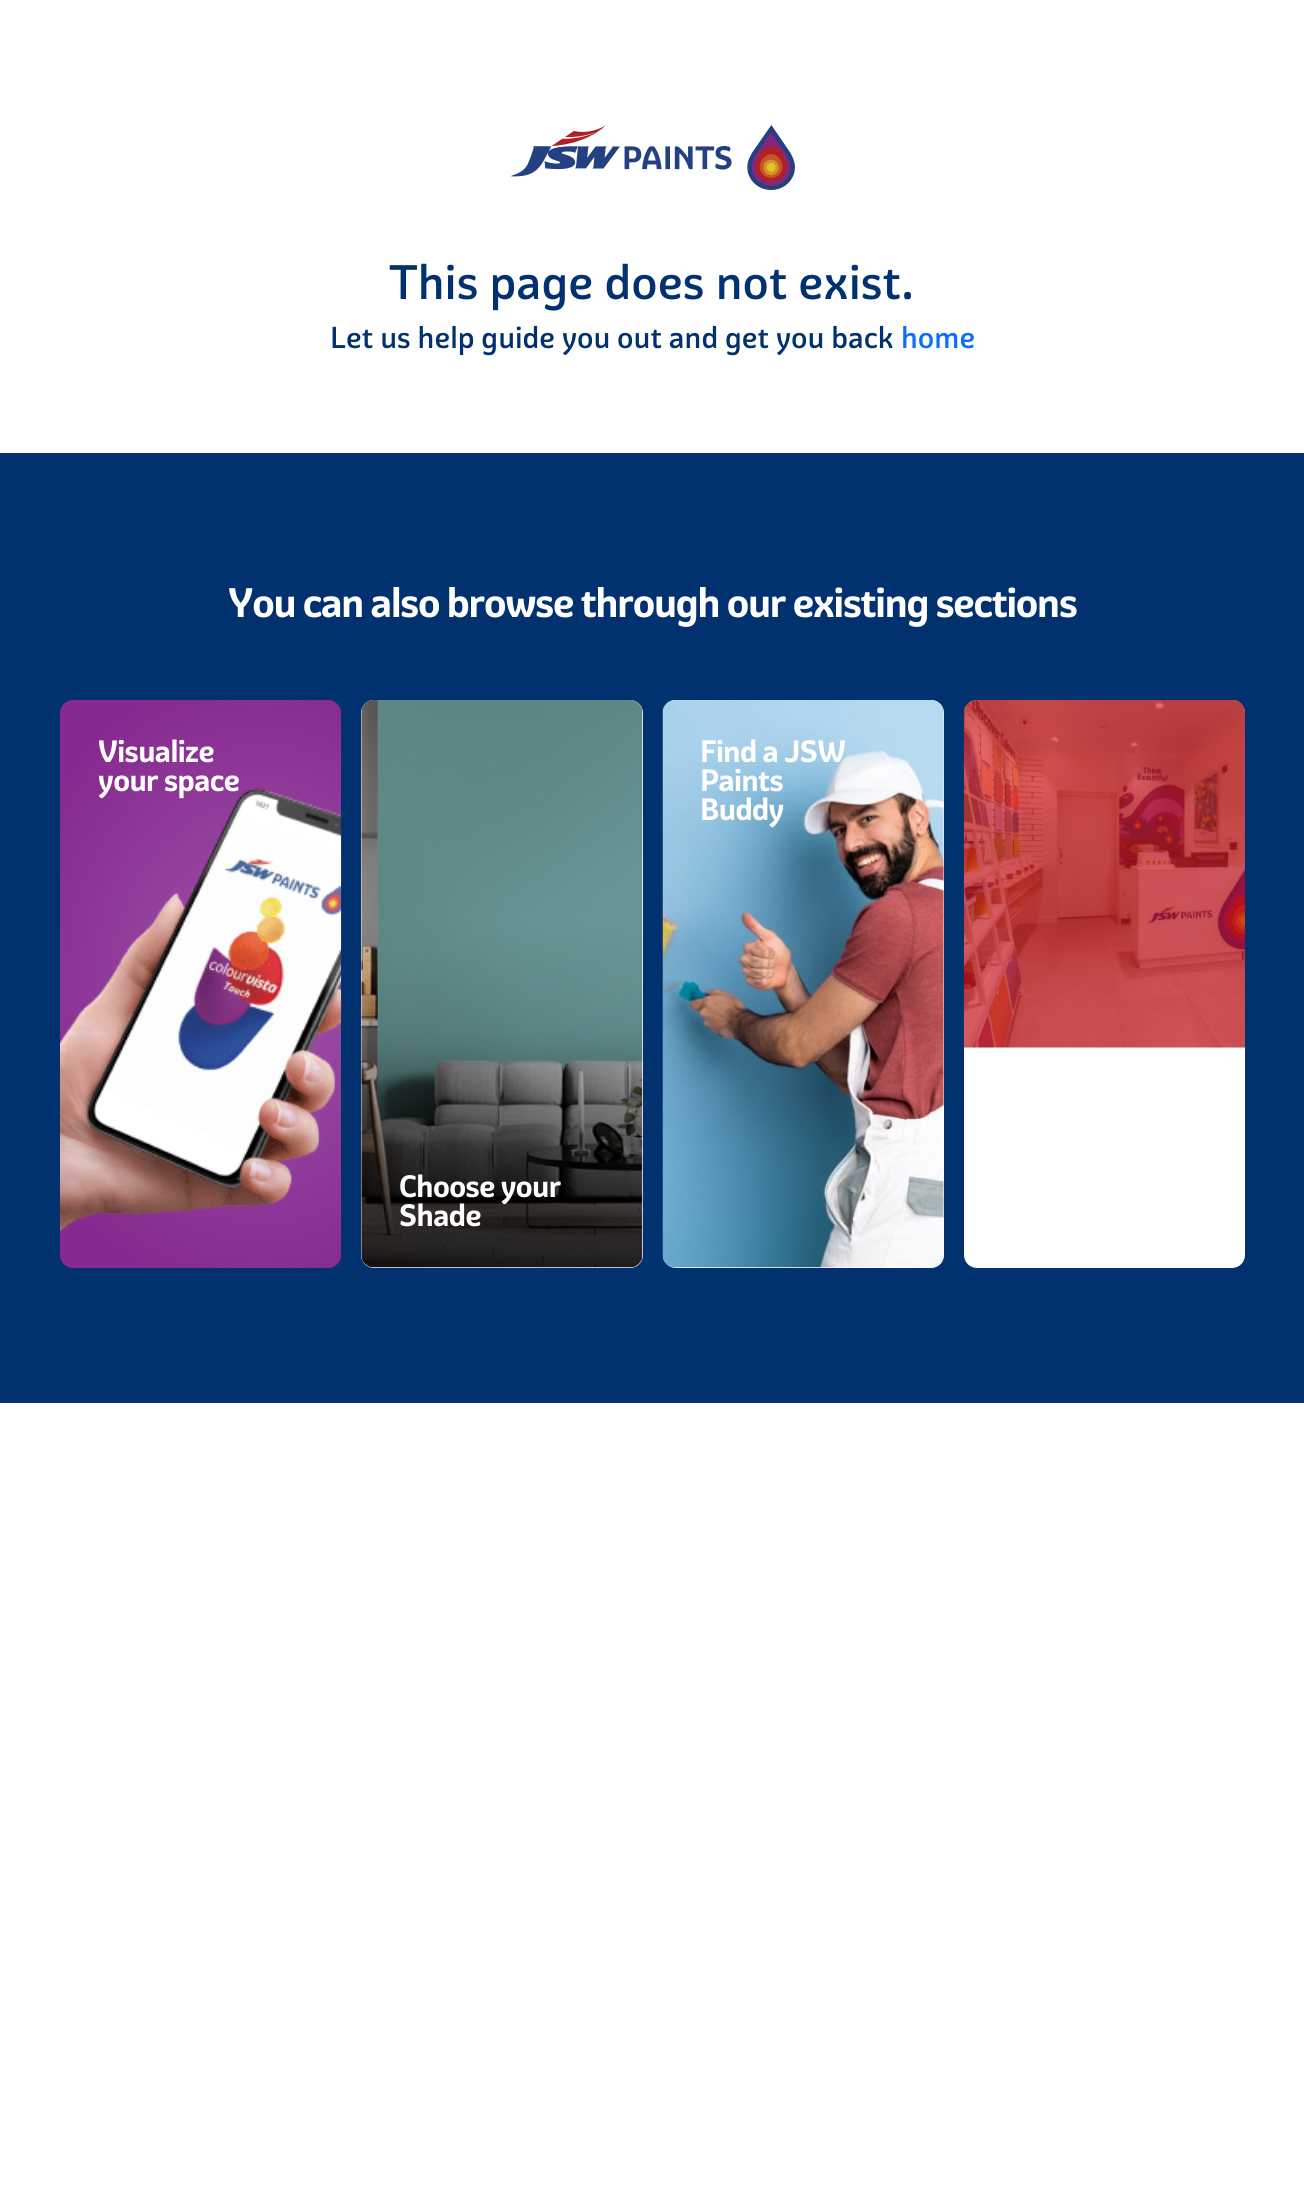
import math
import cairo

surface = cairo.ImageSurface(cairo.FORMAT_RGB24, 1304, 2204)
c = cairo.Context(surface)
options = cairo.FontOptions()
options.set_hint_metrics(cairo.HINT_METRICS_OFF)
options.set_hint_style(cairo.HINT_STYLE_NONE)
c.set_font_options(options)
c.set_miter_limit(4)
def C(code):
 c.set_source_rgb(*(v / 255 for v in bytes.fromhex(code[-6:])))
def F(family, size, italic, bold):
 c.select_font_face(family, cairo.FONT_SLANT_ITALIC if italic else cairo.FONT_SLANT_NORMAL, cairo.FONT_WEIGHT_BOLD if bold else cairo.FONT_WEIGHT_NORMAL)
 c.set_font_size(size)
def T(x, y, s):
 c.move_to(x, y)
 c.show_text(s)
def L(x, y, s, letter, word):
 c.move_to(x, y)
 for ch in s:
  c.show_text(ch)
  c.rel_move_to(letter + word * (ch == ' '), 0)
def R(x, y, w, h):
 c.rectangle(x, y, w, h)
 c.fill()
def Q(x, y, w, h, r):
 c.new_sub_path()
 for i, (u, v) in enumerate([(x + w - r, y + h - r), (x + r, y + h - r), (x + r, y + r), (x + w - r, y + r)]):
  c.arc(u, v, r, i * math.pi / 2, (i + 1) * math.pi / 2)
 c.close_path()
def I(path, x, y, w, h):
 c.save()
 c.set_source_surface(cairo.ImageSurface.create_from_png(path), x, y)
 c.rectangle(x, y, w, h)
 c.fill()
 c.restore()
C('ffffff')
c.paint()
I('1.png',511,125,284,65)
F('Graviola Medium',47,0,0)
C('01326f')
T(389,299,'This page does not exist.')
F('Graviola Medium',29.4,0,0)
T(330,348,'Let us help guide you out and get you back')
C('0d6efd')
T(901,348,'home')
C('01326f')
R(0,453,1304,950)
F('Graviola',40,0,1)
C('ffffff')
L(228,617,'You can also browse through our existing sections',-1.25,0)
C('862990')
Q(60,700,281,568,13)
c.fill()
gradient = cairo.RadialGradient(0,0,0,0,0,1)
gradient.set_matrix(cairo.Matrix(1 / 260, 0, 0, 1 / 319, -1 * 261 / 260, -1 * 984 / 319))
gradient.add_color_stop_rgba(0,1,1,1,.2)
gradient.add_color_stop_rgba(1,1,1,1,0)
c.set_source(gradient)
R(60,700,281,568)
F('Graviola',30,0,1)
C('ffffff')
L(98,762,'Visualize',-.6,0)
I('2.png',60,788,282,445)
L(98,791,'your space',-.6,0)
Q(663,700,281,568,13)
c.fill()
I('3.png',662,700,282,568)
L(700,762,'Find a JSW',-.6,0)
L(700,791,'Paints',-.6,0)
L(700,820,'Buddy',-.6,0)
Q(964,700,281,568,13)
c.fill()
I('4.png',963,700,282,348)
Q(361,700,282,568,13)
c.fill()
I('5.png',361,700,282,568)
L(399,1197,'Choose your',-.6,0)
L(399,1226,'Shade',-.6,0)
surface.write_to_png('o.png')
